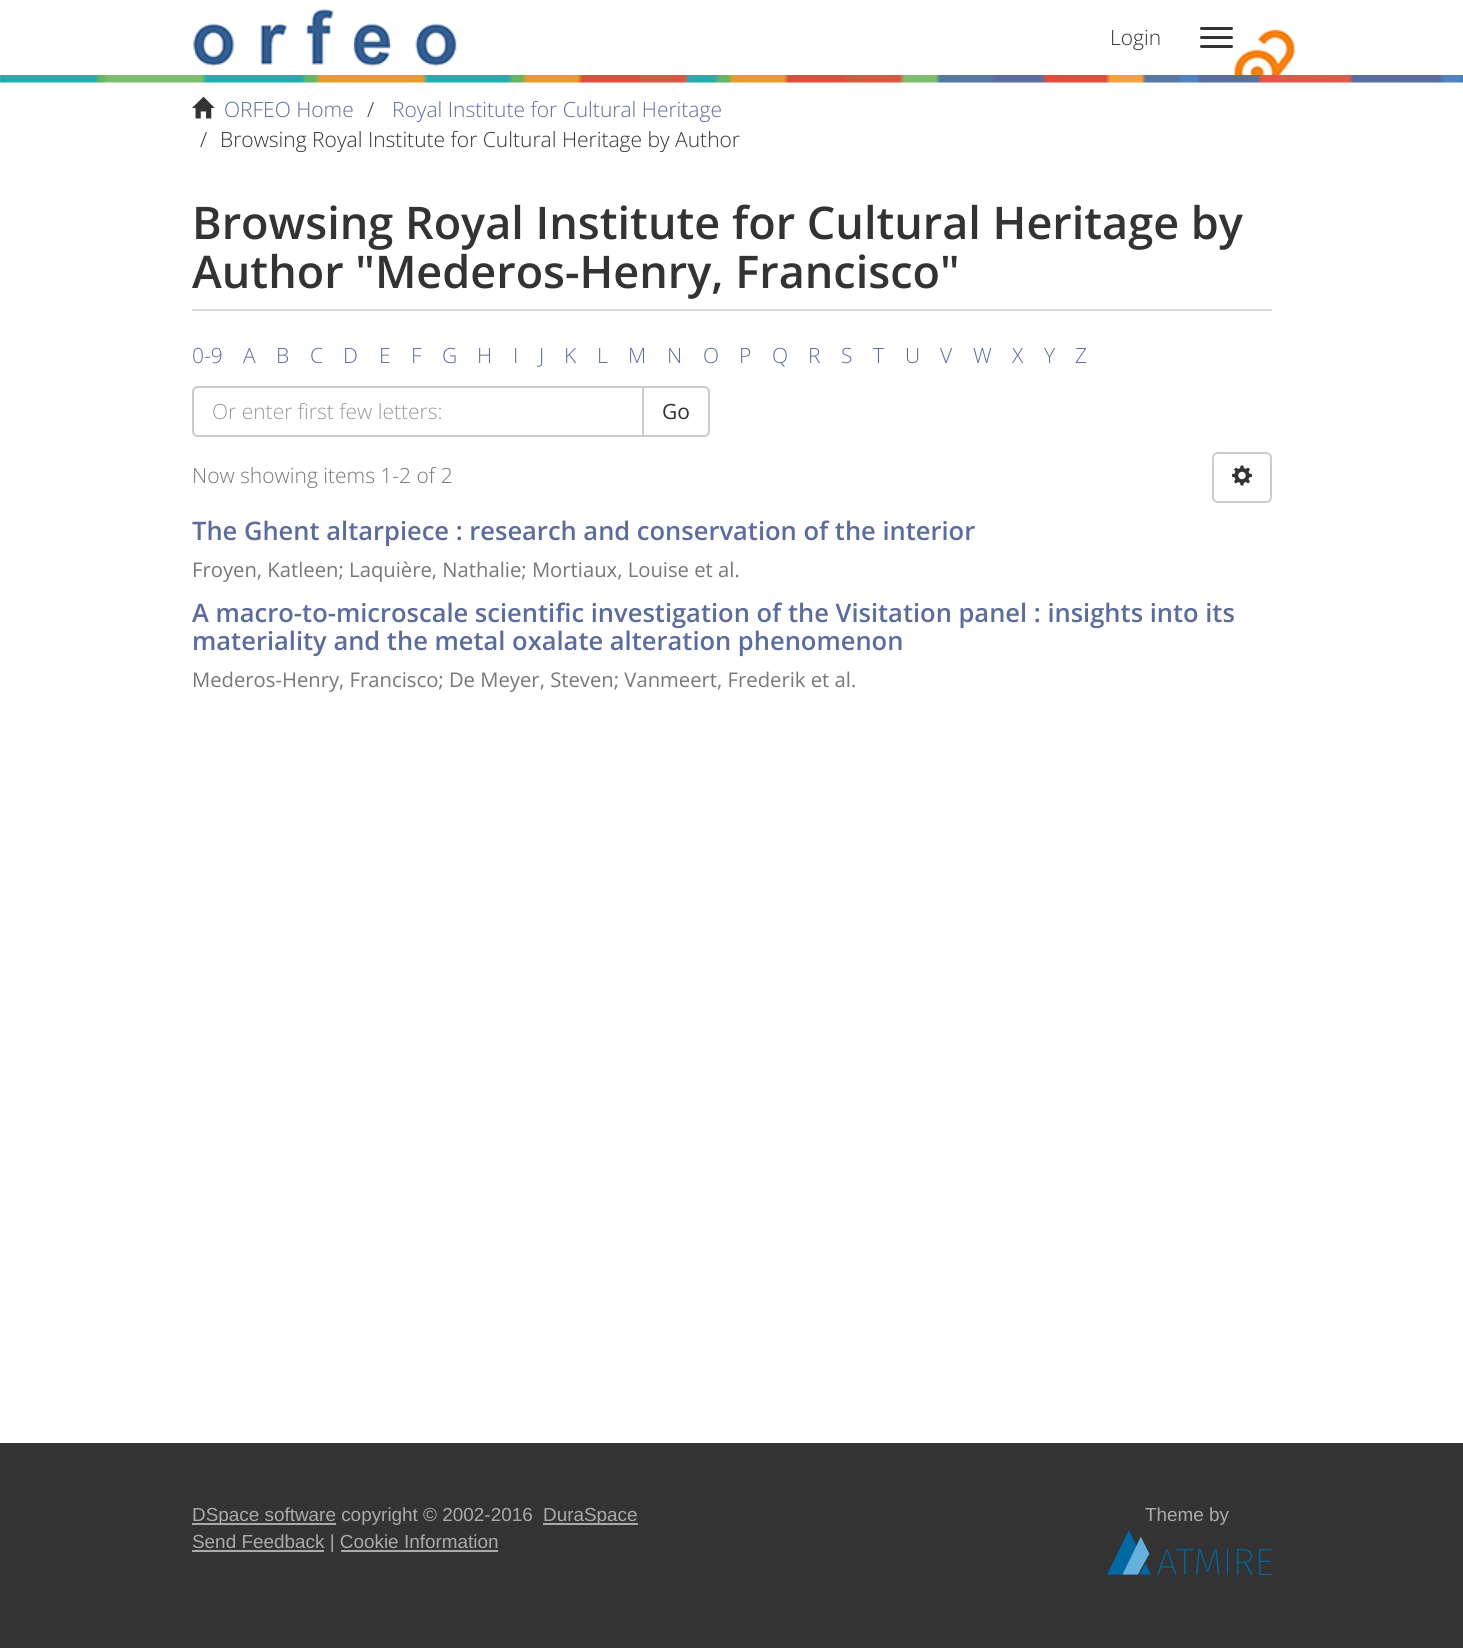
import math
import cairo

surface = cairo.ImageSurface(cairo.FORMAT_RGB24, 1463, 1648)
c = cairo.Context(surface)
options = cairo.FontOptions()
options.set_hint_metrics(cairo.HINT_METRICS_OFF)
options.set_hint_style(cairo.HINT_STYLE_NONE)
c.set_font_options(options)
c.set_miter_limit(4)
def C(code):
 c.set_source_rgb(*(v / 255 for v in bytes.fromhex(code[-6:])))
def F(family, size, italic, bold):
 c.select_font_face(family, cairo.FONT_SLANT_ITALIC if italic else cairo.FONT_SLANT_NORMAL, cairo.FONT_WEIGHT_BOLD if bold else cairo.FONT_WEIGHT_NORMAL)
 c.set_font_size(size)
def T(x, y, s):
 c.move_to(x, y)
 c.show_text(s)
def R(x, y, w, h):
 c.rectangle(x, y, w, h)
 c.fill()
def Q(x, y, w, h, r):
 c.new_sub_path()
 for i, (u, v) in enumerate([(x + w - r, y + h - r), (x + r, y + h - r), (x + r, y + r), (x + w - r, y + r)]):
  c.arc(u, v, r, i * math.pi / 2, (i + 1) * math.pi / 2)
 c.close_path()
def I(path, x, y, w, h):
 c.save()
 c.set_source_surface(cairo.ImageSurface.create_from_png(path), x, y)
 c.rectangle(x, y, w, h)
 c.fill()
 c.restore()
C('ffffff')
c.paint()
I('1.png',1234,29,61,46)
I('2.png',193,8,264,59)
F('Open Sans Light',21,0,0)
C('333333')
T(1110,45,'Login')
Q(1200,27,33,3,1.5)
c.fill()
Q(1200,36,33,3,1.5)
c.fill()
Q(1200,45,33,3,1.5)
c.fill()
I('3.png',0,75,1463,8)
I('4.png',192,96,23,23)
C('5c6c9d')
T(224,117,'ORFEO Home')
C('333333')
T(367,117,'/')
C('5c6c9d')
T(392,117,'Royal Institute for Cultural Heritage')
C('333333')
T(200,147,'/')
T(220,147,'Browsing Royal Institute for Cultural Heritage by Author')
C('d9d9d9')
R(192,309,1080,2)
F('Open Sans SemiBold',45,0,0)
C('333333')
T(192,239,'Browsing Royal Institute for Cultural Heritage by')
T(192,288,'Author "Mederos-Henry, Francisco"')
F('Open Sans Light',21,0,0)
C('5c6c9d')
T(192,363,'0-9')
T(243,363,'A')
T(276,363,'B')
T(310,363,'C')
T(343,363,'D')
T(379,363,'E')
T(411,363,'F')
T(442,363,'G')
T(477,363,'H')
T(513,363,'I')
T(539,363,'J')
T(564,363,'K')
T(597,363,'L')
T(628,363,'M')
T(667,363,'N')
T(703,363,'O')
T(739,363,'P')
T(772,363,'Q')
T(808,363,'R')
T(841,363,'S')
T(873,363,'T')
T(905,363,'U')
T(940,363,'V')
T(973,363,'W')
T(1012,363,'X')
T(1044,363,'Y')
T(1075,363,'Z')
c.new_path()
c.move_to(643,387)
c.line_to(704,387)
c.curve_to(707,387,709,389,709,392)
c.line_to(709,431)
c.curve_to(709,434,707,436,704,436)
c.line_to(643,436)
c.close_path()
C('cccccc')
c.stroke()
C('ffffff')
c.new_path()
c.move_to(198,386)
c.line_to(644,386)
c.line_to(644,437)
c.line_to(198,437)
c.curve_to(194.5,437,192,434.5,192,431)
c.line_to(192,392)
c.curve_to(192,388.5,194.5,386,198,386)
c.close_path()
c.fill()
C('ececec')
c.new_path()
c.move_to(198,388)
c.line_to(642,388)
c.line_to(642,387)
c.line_to(199,387)
c.curve_to(196,387,194,390,194,393)
c.curve_to(194,391,196,388,198,388)
c.close_path()
c.fill()
c.new_path()
c.move_to(198,387)
c.line_to(643,387)
c.line_to(643,436)
c.line_to(198,436)
c.curve_to(195,436,193,434,193,431)
c.line_to(193,392)
c.curve_to(193,389,195,387,198,387)
c.close_path()
C('cccccc')
c.stroke()
C('999999')
T(212,419,'Or enter first few letters:')
F('Open Sans',21,0,0)
C('333333')
T(662,419,'Go')
F('Open Sans Light',21,0,0)
C('777777')
T(192,483,'Now showing items 1-2 of 2')
Q(1213,453,58,49,5)
C('cccccc')
c.stroke()
I('5.png',1231,465,22,21)
F('Open Sans SemiBold',25.5,0,0)
C('5c6c9d')
T(192,540,'The Ghent altarpiece : research and conservation of the interior')
F('Open Sans',20.25,0,0)
C('777777')
T(192,577,'Froyen, Katleen; Laquière, Nathalie; Mortiaux, Louise et al.')
F('Open Sans SemiBold',25.5,0,0)
C('5c6c9d')
T(192,622,'A macro-to-microscale scientific investigation of the Visitation panel : insights into its')
T(192,650,'materiality and the metal oxalate alteration phenomenon')
F('Open Sans',20.25,0,0)
C('777777')
T(192,687,'Mederos-Henry, Francisco; De Meyer, Steven; Vanmeert, Frederik et al.')
C('333333')
R(0,1443,1463,205)
C('aaaaaa')
R(192,1523,144,2)
F('Liberation Sans',18.9,0,0)
T(192,1521,'DSpace software copyright © 2002-2016')
R(543,1523,95,2)
T(543,1521,'DuraSpace')
R(192,1550,132,2)
T(192,1548,'Send Feedback | Cookie Information')
R(341,1550,157,2)
T(1145,1521,'Theme by')
I('6.png',1107,1530,165,45)
surface.write_to_png('o.png')
